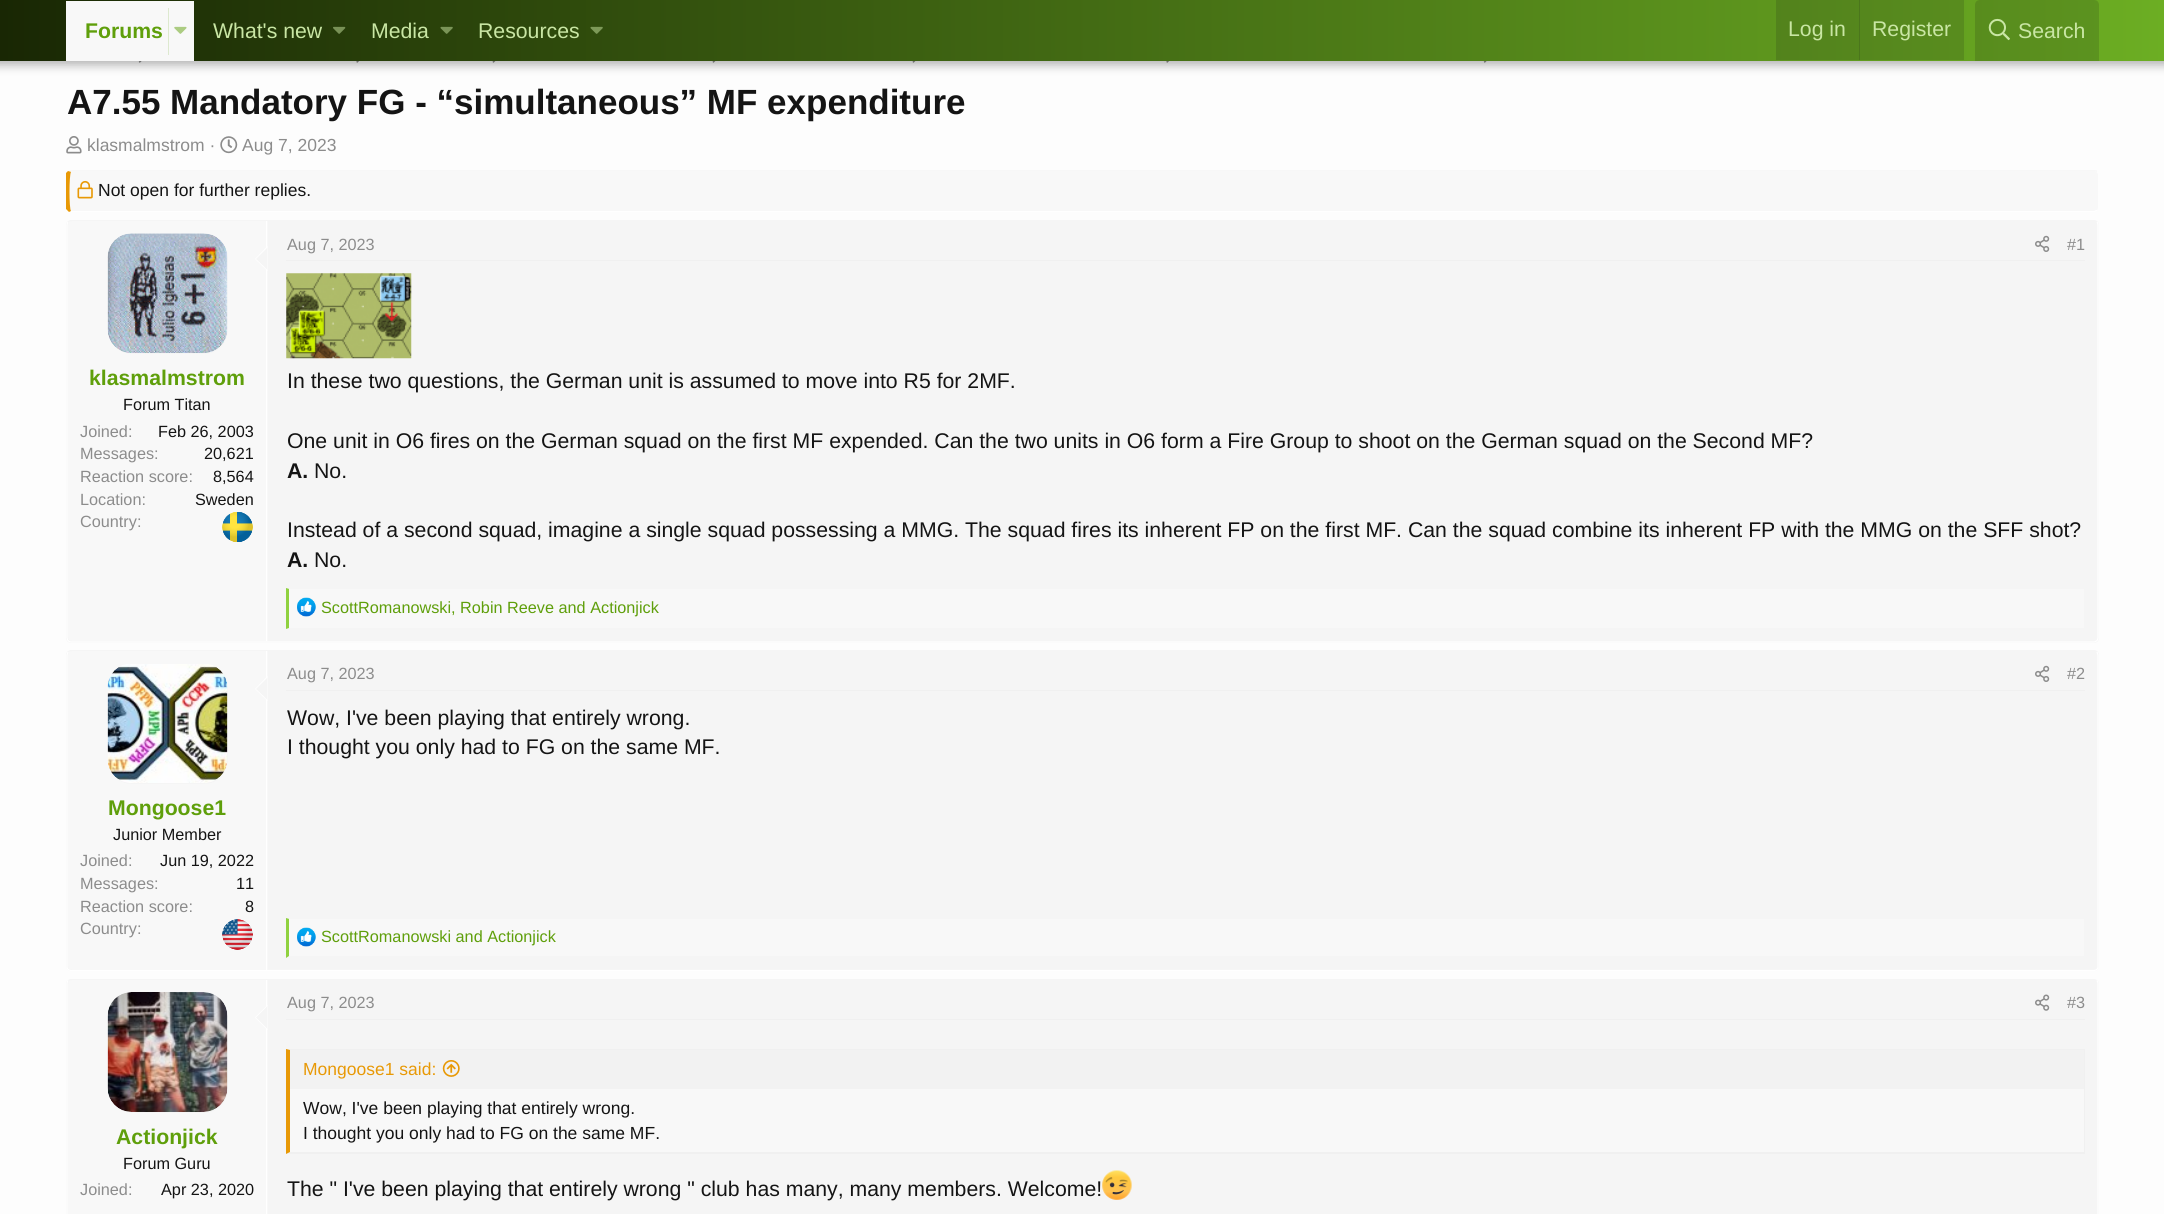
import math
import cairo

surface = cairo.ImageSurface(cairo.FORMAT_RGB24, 2164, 1214)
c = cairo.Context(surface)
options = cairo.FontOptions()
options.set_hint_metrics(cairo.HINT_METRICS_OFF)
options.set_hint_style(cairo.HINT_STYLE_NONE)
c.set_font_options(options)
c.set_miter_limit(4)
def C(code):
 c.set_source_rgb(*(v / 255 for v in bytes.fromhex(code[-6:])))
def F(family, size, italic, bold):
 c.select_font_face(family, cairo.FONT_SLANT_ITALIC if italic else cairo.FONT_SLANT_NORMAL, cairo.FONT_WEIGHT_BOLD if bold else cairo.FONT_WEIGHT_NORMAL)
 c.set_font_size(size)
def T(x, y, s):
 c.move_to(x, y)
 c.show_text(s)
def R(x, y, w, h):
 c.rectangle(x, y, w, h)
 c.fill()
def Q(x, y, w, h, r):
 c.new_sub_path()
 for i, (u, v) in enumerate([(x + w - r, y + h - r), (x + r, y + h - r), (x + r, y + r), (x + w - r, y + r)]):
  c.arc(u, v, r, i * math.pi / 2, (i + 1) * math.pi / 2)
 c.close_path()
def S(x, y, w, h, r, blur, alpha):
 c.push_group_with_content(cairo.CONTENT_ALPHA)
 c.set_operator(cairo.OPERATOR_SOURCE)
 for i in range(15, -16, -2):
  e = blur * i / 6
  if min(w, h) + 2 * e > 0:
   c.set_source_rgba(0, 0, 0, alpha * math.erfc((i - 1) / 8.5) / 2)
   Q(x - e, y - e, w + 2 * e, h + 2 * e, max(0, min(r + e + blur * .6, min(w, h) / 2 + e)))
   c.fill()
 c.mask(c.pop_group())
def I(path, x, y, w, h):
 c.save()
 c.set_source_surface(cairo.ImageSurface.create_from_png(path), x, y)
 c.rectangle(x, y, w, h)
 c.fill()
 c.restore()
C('fdfdfd')
c.paint()
I('6.png',138,61,4,2)
I('7.png',356,61,3,2)
I('8.png',492,61,4,2)
I('8.png',712,61,4,2)
I('8.png',912,61,4,2)
I('7.png',1166,61,3,2)
I('6.png',1483,61,4,2)
C('000000')
S(-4,-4,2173,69,0,5,.3)
gradient = cairo.LinearGradient(0,31,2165,31)
gradient.add_color_stop_rgba(0,0.098,0.153,0.016,1)
gradient.add_color_stop_rgba(1,0.424,0.682,0.137,1)
c.set_source(gradient)
R(0,0,2164,61)
gradient = cairo.LinearGradient(0,31,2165,31)
gradient.add_color_stop_rgba(0,0.094,0.141,0.024,1)
gradient.add_color_stop_rgba(1,0.373,0.592,0.129,1)
c.set_source(gradient)
R(1776,0,188,60)
C('f8f8f8')
R(66,1,128,60)
F('Liberation Sans',21.25,0,1)
C('5f9f0b')
T(85,38,'Forums')
C('dde9cf')
R(168,8,1,47)
I('1.png',174,26,13,8)
F('Liberation Sans',21.25,0,0)
C('c9e6a4')
T(213,38,'What\'s new')
I('2.png',333,26,13,8)
T(371,38,'Media')
I('3.png',440,26,13,8)
T(478,38,'Resources')
I('4.png',590,26,13,8)
T(1788,36,'Log in')
C('4b761c')
R(1859,0,1,60)
C('c9e6a4')
T(1872,36,'Register')
c.set_source_rgba(0.078,0.078,0.078,0.15)
c.new_path()
c.move_to(1980,0)
c.line_to(2094,0)
c.curve_to(2097,0,2099,2,2099,5)
c.line_to(2099,61)
c.line_to(1975,61)
c.line_to(1975,5)
c.curve_to(1975,2,1977,0,1980,0)
c.close_path()
c.fill()
I('5.png',1988,18,22,23)
C('c9e6a4')
T(2018,38,'Search')
F('Liberation Sans',35,0,1)
C('141414')
T(67,114,'A7.55 Mandatory FG - “simultaneous” MF expenditure')
I('9.png',66,136,16,18)
F('Liberation Sans',17.5,0,0)
C('8c8c8c')
T(87,151,'klasmalmstrom ·')
I('10.png',220,136,18,18)
T(242,151,'Aug 7, 2023')
C('f8f8f8')
c.new_path()
c.move_to(71,171)
c.line_to(2094,171)
c.curve_to(2096,171,2098,173,2098,175)
c.line_to(2098,208)
c.curve_to(2098,210,2096,211,2094,211)
c.line_to(71,211)
c.curve_to(71,211,70,210,70,208)
c.line_to(70,175)
c.curve_to(70,173,71,171,71,171)
c.close_path()
c.fill()
C('f7f7f7')
c.new_path()
c.move_to(71,170)
c.line_to(68,171)
c.line_to(71,172)
c.line_to(71,171)
c.line_to(2094,171)
c.line_to(2097,172)
c.line_to(2097,171)
c.curve_to(2097,170,2095,170,2094,170)
c.close_path()
c.fill()
C('ffffff')
c.new_path()
c.move_to(2097,211)
c.line_to(2094,212)
c.line_to(71,212)
c.line_to(69,212)
c.line_to(71,211)
c.line_to(2094,211)
c.line_to(2097,210)
c.close_path()
c.fill()
C('e89906')
c.new_path()
c.move_to(66,173)
c.line_to(68,171)
c.line_to(71,172)
c.curve_to(69,175,69,209,71,211)
c.line_to(69,212)
c.curve_to(68,211,67,210,66,209)
c.close_path()
c.fill()
I('11.png',77,180,16,19)
C('141414')
T(98,196,'Not open for further replies.')
C('f5f5f5')
Q(66,220,2033,423,5)
c.fill()
c.new_path()
c.move_to(2097,222)
c.curve_to(2097.5,222.5,2098,224,2098,225)
c.line_to(2098,637.5)
c.curve_to(2098,638.5,2097.5,640,2097,640.5)
c.curve_to(2096,641.5,2095,642,2094,642)
c.line_to(71,642)
c.curve_to(70,642,69,641.5,68,640.5)
c.curve_to(67.5,640,67,638.5,67,637.5)
c.line_to(67,225)
c.curve_to(67,224,67.5,222.5,68,222)
C('ffffff')
c.set_line_width(1.2)
c.stroke()
C('f8f8f8')
c.new_path()
c.move_to(72,221)
c.line_to(268,221)
c.line_to(268,641)
c.line_to(72,641)
c.curve_to(70,641,68,639,68,637)
c.line_to(68,225)
c.curve_to(68,223,70,221,72,221)
c.close_path()
c.fill()
C('ffffff')
R(266,221,1,420)
C('f5f5f5')
Q(108,234,120,120,24)
c.fill()
I('12.png',107,233,121,120)
C('ffffff')
c.new_path()
c.move_to(267.5,246)
c.line_to(267.5,271)
c.line_to(255,259)
c.close_path()
c.fill()
C('f5f5f5')
c.new_path()
c.move_to(267.5,247.5)
c.line_to(267.5,270)
c.line_to(256,259)
c.close_path()
c.fill()
F('Liberation Sans',21.25,0,1)
C('5f9f0b')
T(89,385,'klasmalmstrom')
F('Liberation Sans',16.25,0,0)
C('141414')
T(123,410,'Forum Titan')
C('8c8c8c')
T(80,437,'Joined:')
C('141414')
T(158,437,'Feb 26, 2003')
C('8c8c8c')
T(80,459,'Messages:')
C('141414')
T(204,459,'20,621')
C('8c8c8c')
T(80,482,'Reaction score:')
C('141414')
T(213,482,'8,564')
C('8c8c8c')
T(80,505,'Location:')
C('141414')
T(195,505,'Sweden')
C('8c8c8c')
T(80,527,'Country:')
I('13.png',222,512,31,30)
C('f0f0f0')
R(286,260,1799,1)
C('8c8c8c')
T(287,250,'Aug 7, 2023')
I('14.png',2035,235,15,17)
T(2067,250,'#1')
I('15.png',286,273,126,86)
F('Liberation Sans',21.25,0,0)
C('141414')
T(287,388,'In these two questions, the German unit is assumed to move into R5 for 2MF.')
T(287,448,'One unit in O6 fires on the German squad on the first MF expended. Can the two units in O6 form a Fire Group to shoot on the German squad on the Second MF?')
F('Liberation Sans',21.25,0,1)
T(287,478,'A.')
F('Liberation Sans',21.25,0,0)
T(314,478,'No.')
T(287,537,'Instead of a second squad, imagine a single squad possessing a MMG. The squad fires its inherent FP on the first MF. Can the squad combine its inherent FP with the MMG on the SFF shot?')
F('Liberation Sans',21.25,0,1)
T(287,567,'A.')
F('Liberation Sans',21.25,0,0)
T(314,567,'No.')
C('f8f8f8')
R(289,589,1795,39)
C('8fd13f')
c.new_path()
c.move_to(286,629)
c.line_to(286,588)
c.line_to(289,589)
c.line_to(289,628)
c.close_path()
c.fill()
I('16.png',297,597,19,20)
F('Liberation Sans',16.25,0,0)
C('5f9f0b')
T(321,613,'ScottRomanowski, Robin Reeve and Actionjick')
C('f5f5f5')
Q(66,650,2033,321,5)
c.fill()
c.new_path()
c.move_to(2097,652)
c.line_to(2098,655)
c.line_to(2098,967.5)
c.curve_to(2097.5,969.5,2095.5,970.5,2094,970.5)
c.line_to(71,970.5)
c.curve_to(69.5,970.5,67.5,969.5,67,967.5)
c.line_to(67,655)
c.line_to(68,652)
C('ffffff')
c.stroke()
C('f8f8f8')
c.new_path()
c.move_to(72,651)
c.line_to(268,651)
c.line_to(268,970)
c.line_to(72,970)
c.curve_to(70,970,68,968,68,966)
c.line_to(68,655)
c.curve_to(68,653,70,651,72,651)
c.close_path()
c.fill()
C('ffffff')
R(266,651,1,319)
C('f5f5f5')
Q(108,664,120,120,24)
c.fill()
I('17.png',107,664,121,119)
C('ffffff')
c.new_path()
c.move_to(267.5,676)
c.line_to(267.5,701)
c.line_to(255,689)
c.close_path()
c.fill()
C('f5f5f5')
c.new_path()
c.move_to(267.5,677.5)
c.line_to(267.5,700)
c.line_to(256,689)
c.close_path()
c.fill()
F('Liberation Sans',21.25,0,1)
C('5f9f0b')
T(108,815,'Mongoose1')
F('Liberation Sans',16.25,0,0)
C('141414')
T(113,840,'Junior Member')
C('8c8c8c')
T(80,866,'Joined:')
C('141414')
T(160,866,'Jun 19, 2022')
C('8c8c8c')
T(80,889,'Messages:')
C('141414')
T(236,889,'11')
C('8c8c8c')
T(80,912,'Reaction score:')
C('141414')
T(245,912,'8')
C('8c8c8c')
T(80,934,'Country:')
I('18.png',222,919,31,31)
C('f0f0f0')
R(286,690,1799,1)
C('8c8c8c')
T(287,679,'Aug 7, 2023')
I('14.png',2035,665,15,17)
T(2067,679,'#2')
F('Liberation Sans',21.25,0,0)
C('141414')
T(287,725,'Wow, I\'ve been playing that entirely wrong.')
T(287,754,'I thought you only had to FG on the same MF.')
C('f8f8f8')
R(289,919,1795,37)
C('8fd13f')
c.new_path()
c.move_to(286,958)
c.line_to(286,918)
c.line_to(289,919)
c.line_to(289,956)
c.close_path()
c.fill()
I('19.png',297,927,19,20)
F('Liberation Sans',16.25,0,0)
C('5f9f0b')
T(321,942,'ScottRomanowski and Actionjick')
C('f5f5f5')
Q(66,979,2033,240,5)
c.fill()
c.new_path()
c.move_to(2097,980.5)
c.curve_to(2097.5,981.5,2098,982.5,2098,984)
c.line_to(2098,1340)
c.curve_to(2098,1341,2097.5,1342.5,2097,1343)
c.curve_to(2096,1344,2095,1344.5,2094,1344.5)
c.line_to(71,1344.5)
c.curve_to(70,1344.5,69,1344,68,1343)
c.curve_to(67.5,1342.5,67,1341,67,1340)
c.line_to(67,984)
c.curve_to(67,982.5,67.5,981.5,68,980.5)
C('ffffff')
c.stroke()
C('f8f8f8')
c.new_path()
c.move_to(72,980)
c.line_to(268,980)
c.line_to(268,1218)
c.line_to(72,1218)
c.curve_to(70,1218,68,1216,68,1214)
c.line_to(68,984)
c.curve_to(68,982,70,980,72,980)
c.close_path()
c.fill()
C('ffffff')
R(266,980,1,234)
C('f5f5f5')
Q(108,993,120,120,24)
c.fill()
I('20.png',107,992,121,120)
C('ffffff')
c.new_path()
c.move_to(267.5,1005)
c.line_to(267.5,1030)
c.line_to(255,1017.5)
c.close_path()
c.fill()
C('f5f5f5')
c.new_path()
c.move_to(267.5,1006)
c.line_to(267.5,1029)
c.line_to(256,1017.5)
c.close_path()
c.fill()
F('Liberation Sans',21.25,0,1)
C('5f9f0b')
T(116,1144,'Actionjick')
F('Liberation Sans',16.25,0,0)
C('141414')
T(123,1169,'Forum Guru')
C('8c8c8c')
T(80,1195,'Joined:')
C('141414')
T(161,1195,'Apr 23, 2020')
C('f0f0f0')
R(286,1019,1799,1)
C('8c8c8c')
T(287,1008,'Aug 7, 2023')
I('21.png',2035,994,15,17)
T(2067,1008,'#3')
C('f8f8f8')
R(290,1089,1794,63)
C('f0f0f0')
c.new_path()
c.move_to(286,1049)
c.line_to(2085,1049)
c.line_to(2084,1050)
c.line_to(290,1050)
c.close_path()
c.fill()
R(2084,1049,1,105)
c.new_path()
c.move_to(2085,1154)
c.line_to(286,1154)
c.line_to(290,1152)
c.line_to(2084,1152)
c.close_path()
c.fill()
C('e89906')
c.new_path()
c.move_to(286,1154)
c.line_to(286,1049)
c.line_to(290,1050)
c.line_to(290,1152)
c.close_path()
c.fill()
C('f2f2f2')
R(290,1050,1794,39)
F('Liberation Sans',17.5,0,0)
C('e89906')
T(303,1075,'Mongoose1 said:')
I('22.png',442,1060,18,17)
C('141414')
T(303,1114,'Wow, I\'ve been playing that entirely wrong.')
T(303,1139,'I thought you only had to FG on the same MF.')
F('Liberation Sans',21.25,0,0)
T(287,1196,'The " I\'ve been playing that entirely wrong " club has many, many members. Welcome!')
I('23.png',1102,1170,30,30)
surface.write_to_png('o.png')
